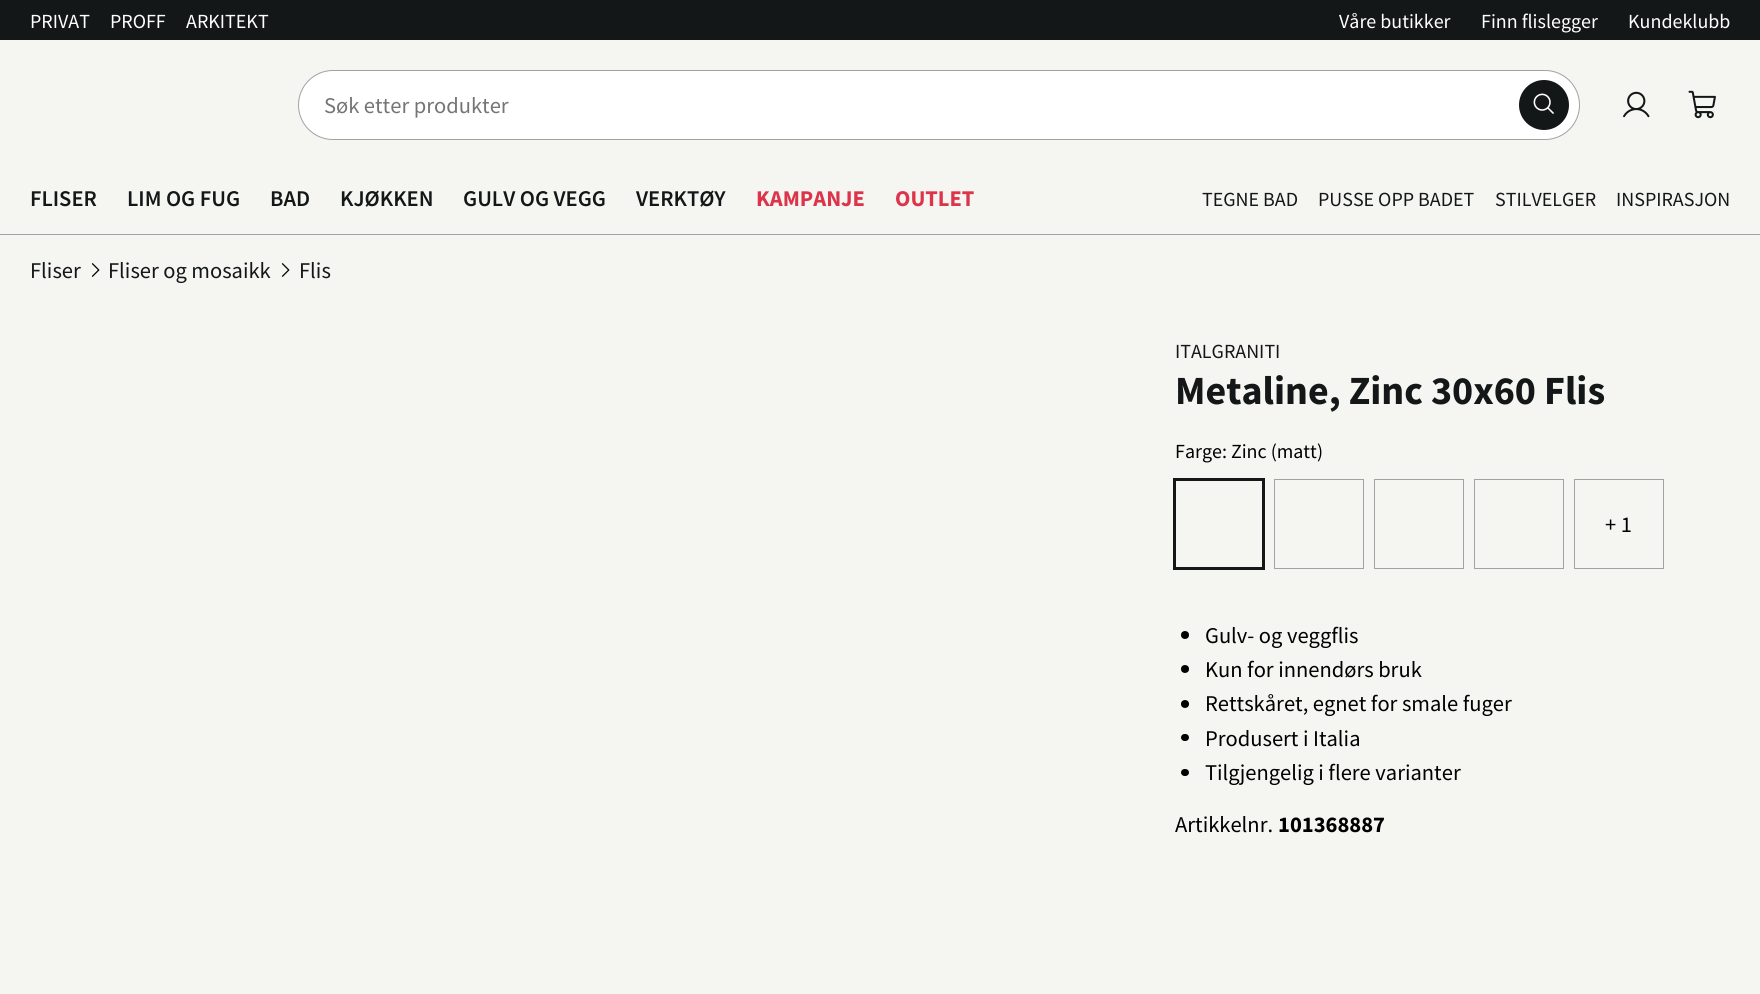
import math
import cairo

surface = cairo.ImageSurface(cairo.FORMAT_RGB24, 1760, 994)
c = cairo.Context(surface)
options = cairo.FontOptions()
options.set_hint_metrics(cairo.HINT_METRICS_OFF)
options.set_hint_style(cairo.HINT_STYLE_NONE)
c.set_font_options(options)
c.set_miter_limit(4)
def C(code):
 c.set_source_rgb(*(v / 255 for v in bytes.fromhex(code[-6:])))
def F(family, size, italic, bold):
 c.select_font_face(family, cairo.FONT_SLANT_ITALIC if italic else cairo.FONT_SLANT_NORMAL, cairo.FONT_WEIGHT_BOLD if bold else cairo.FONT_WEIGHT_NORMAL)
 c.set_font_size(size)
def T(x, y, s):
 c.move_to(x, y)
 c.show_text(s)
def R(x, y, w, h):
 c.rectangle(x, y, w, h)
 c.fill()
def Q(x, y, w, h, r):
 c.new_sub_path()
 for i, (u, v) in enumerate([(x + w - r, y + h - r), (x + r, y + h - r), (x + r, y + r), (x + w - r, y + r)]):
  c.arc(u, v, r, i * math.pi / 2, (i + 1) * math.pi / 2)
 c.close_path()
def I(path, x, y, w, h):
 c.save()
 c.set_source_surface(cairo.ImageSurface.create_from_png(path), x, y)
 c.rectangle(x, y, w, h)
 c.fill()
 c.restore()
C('f5f5f1')
c.paint()
C('a1a2a3')
R(0,234,1760,1)
C('131718')
R(0,0,1760,40)
F('Source Sans Pro',20,0,0)
C('ffffff')
T(30,28,'PRIVAT')
T(110,28,'PROFF')
T(186,28,'ARKITEKT')
T(1339,28,'Våre butikker')
T(1481,28,'Finn flislegger')
T(1628,28,'Kundeklubb')
Q(298.5,70.5,1281,69,34.5)
c.fill_preserve()
C('a1a2a3')
c.set_line_width(1)
c.stroke()
F('Source Sans Pro',22.5,0,0)
C('757575')
T(324,113,'Søk etter produkter')
C('131718')
c.new_path()
c.arc(1544,105,25,0,2 * math.pi)
c.fill()
I('1.png',1533,93,21,21)
I('2.png',1623,91,27,27)
I('3.png',1688,90,28,29)
F('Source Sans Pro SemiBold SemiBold',22.5,0,0)
T(30,206,'FLISER')
T(127,206,'LIM OG FUG')
T(270,206,'BAD')
T(340,206,'KJØKKEN')
T(463,206,'GULV OG VEGG')
T(636,206,'VERKTØY')
F('Source Sans Pro',22.5,0,1)
C('dc344a')
T(756,206,'KAMPANJE')
T(895,206,'OUTLET')
F('Source Sans Pro',20,0,0)
C('131718')
T(1202,206,'TEGNE BAD')
T(1318,206,'PUSSE OPP BADET')
T(1495,206,'STILVELGER')
T(1616,206,'INSPIRASJON')
F('Source Sans Pro',22.5,0,0)
T(30,278,'Fliser')
I('4.png',91,263,9,14)
T(108,278,'Fliser og mosaikk')
I('4.png',281,263,9,14)
T(299,278,'Flis')
F('Source Sans Pro',20,0,0)
T(1175,358,'ITALGRANITI')
F('Source Sans Pro',40,0,1)
T(1175,404,'Metaline, Zinc 30x60 Flis')
F('Source Sans Pro',20,0,0)
C('000000')
T(1175,458,'Farge: Zinc (matt)')
c.rectangle(1174.5,479.5,89,89)
C('131718')
c.set_line_width(3)
c.stroke()
c.rectangle(1274.5,479.5,89,89)
C('a1a2a3')
c.set_line_width(1)
c.stroke()
c.rectangle(1374.5,479.5,89,89)
c.stroke()
c.rectangle(1474.5,479.5,89,89)
c.stroke()
c.rectangle(1574.5,479.5,89,89)
c.stroke()
F('Source Sans Pro',22.5,0,0)
C('000000')
T(1605,532,'+ 1')
c.new_path()
c.arc(1185,635,4,0,2 * math.pi)
c.fill()
T(1205,643,'Gulv- og veggflis')
c.new_path()
c.arc(1185,669,4,0,2 * math.pi)
c.fill()
T(1205,677,'Kun for innendørs bruk')
c.new_path()
c.arc(1185,704,4,0,2 * math.pi)
c.fill()
T(1205,711,'Rettskåret, egnet for smale fuger')
Q(1181,734,8,7,3.5)
c.fill()
T(1205,746,'Produsert i Italia')
Q(1181,769,8,7,3.5)
c.fill()
T(1205,780,'Tilgjengelig i flere varianter')
T(1175,832,'Artikkelnr.')
F('Source Sans Pro',22.5,0,1)
T(1278,832,'101368887')
surface.write_to_png('o.png')
